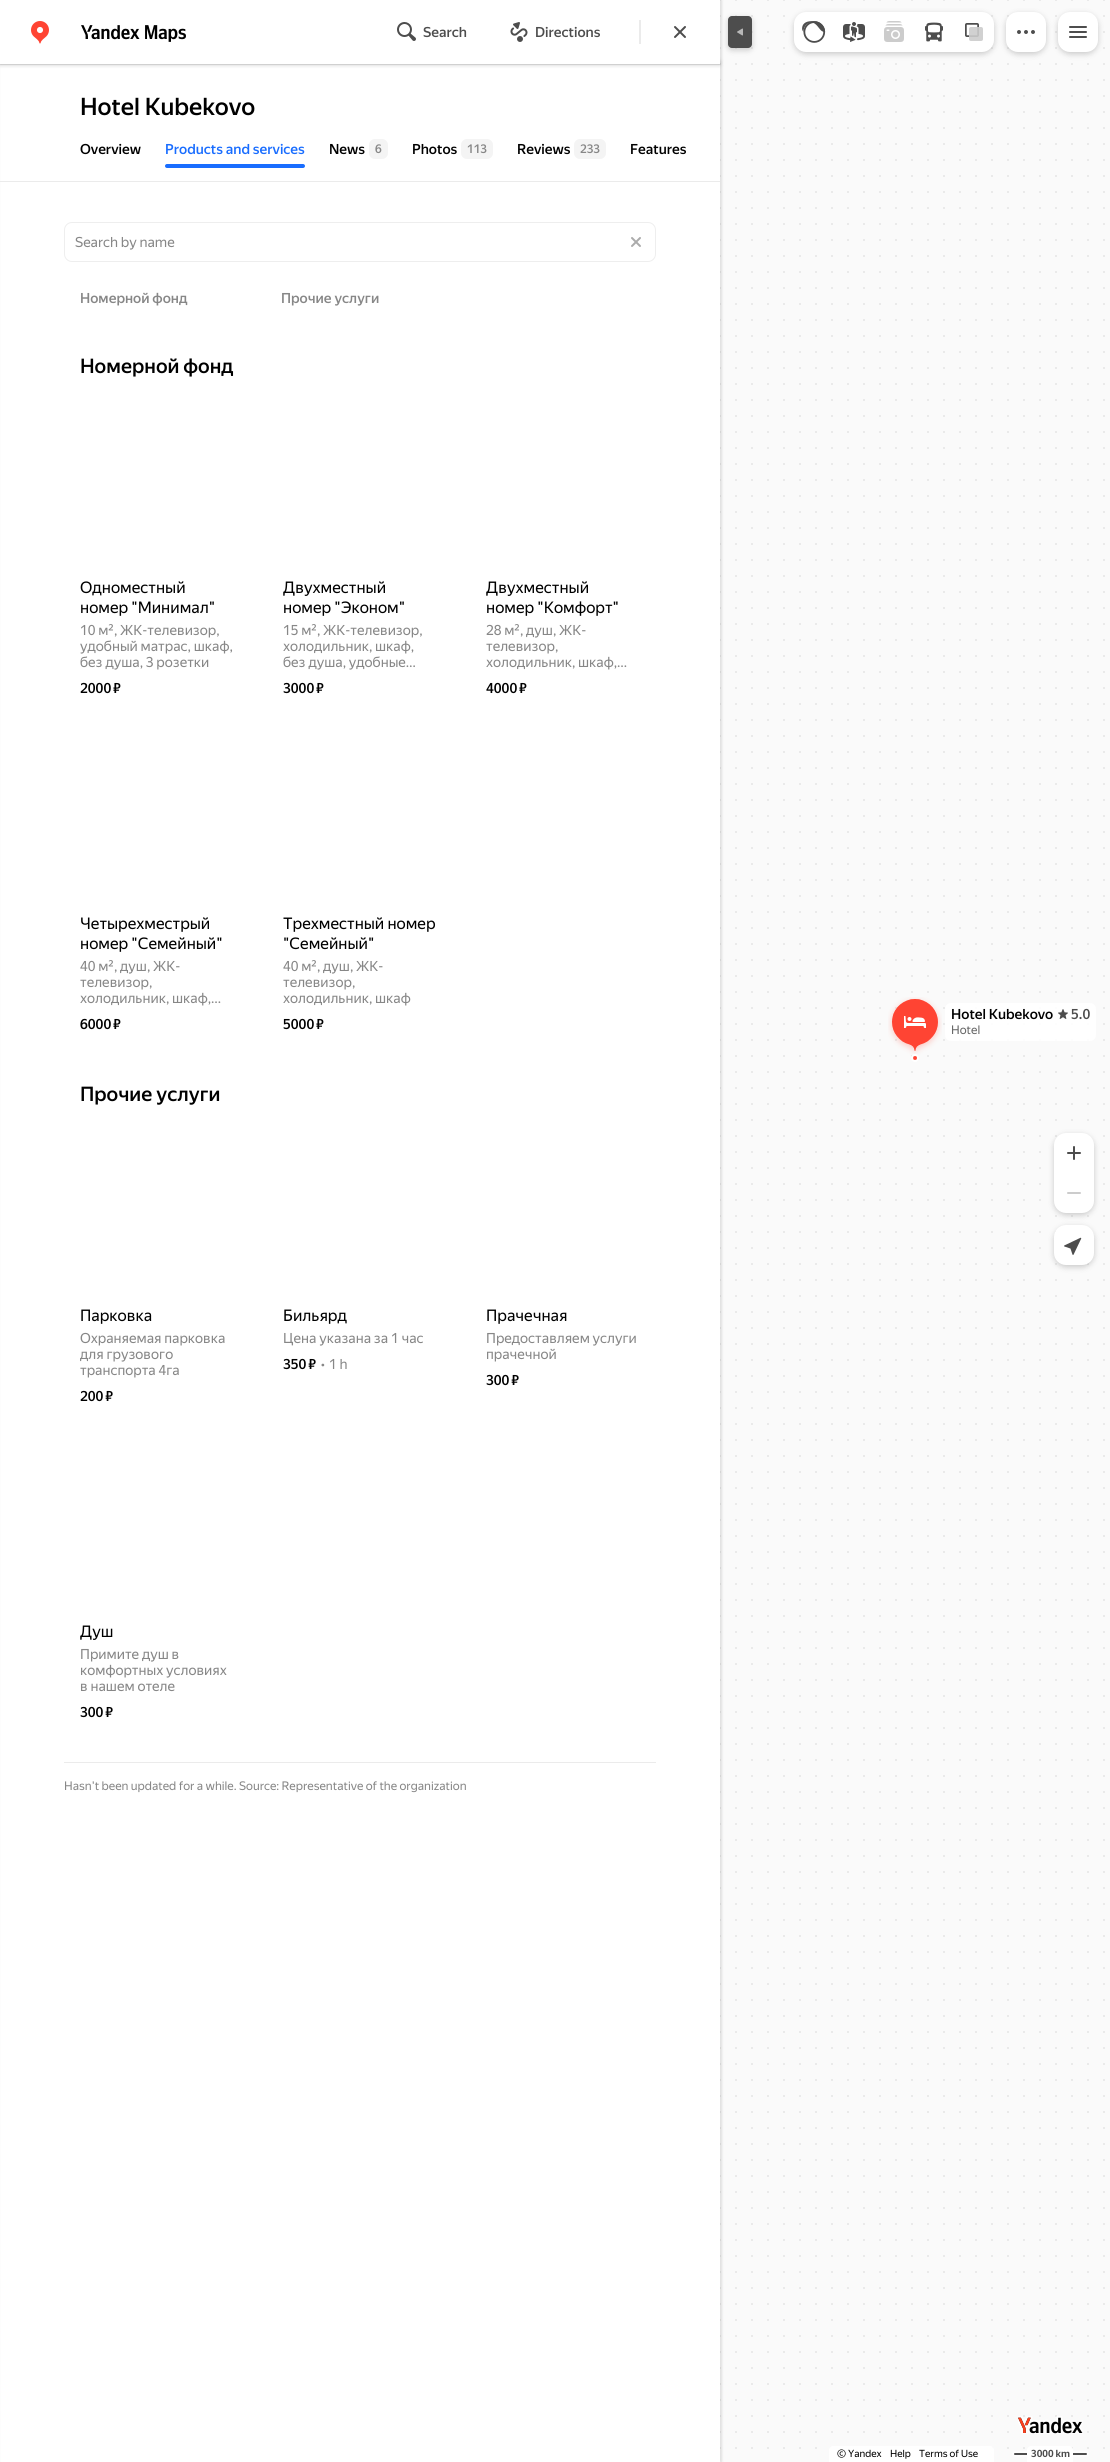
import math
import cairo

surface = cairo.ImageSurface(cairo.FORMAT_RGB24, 1110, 2462)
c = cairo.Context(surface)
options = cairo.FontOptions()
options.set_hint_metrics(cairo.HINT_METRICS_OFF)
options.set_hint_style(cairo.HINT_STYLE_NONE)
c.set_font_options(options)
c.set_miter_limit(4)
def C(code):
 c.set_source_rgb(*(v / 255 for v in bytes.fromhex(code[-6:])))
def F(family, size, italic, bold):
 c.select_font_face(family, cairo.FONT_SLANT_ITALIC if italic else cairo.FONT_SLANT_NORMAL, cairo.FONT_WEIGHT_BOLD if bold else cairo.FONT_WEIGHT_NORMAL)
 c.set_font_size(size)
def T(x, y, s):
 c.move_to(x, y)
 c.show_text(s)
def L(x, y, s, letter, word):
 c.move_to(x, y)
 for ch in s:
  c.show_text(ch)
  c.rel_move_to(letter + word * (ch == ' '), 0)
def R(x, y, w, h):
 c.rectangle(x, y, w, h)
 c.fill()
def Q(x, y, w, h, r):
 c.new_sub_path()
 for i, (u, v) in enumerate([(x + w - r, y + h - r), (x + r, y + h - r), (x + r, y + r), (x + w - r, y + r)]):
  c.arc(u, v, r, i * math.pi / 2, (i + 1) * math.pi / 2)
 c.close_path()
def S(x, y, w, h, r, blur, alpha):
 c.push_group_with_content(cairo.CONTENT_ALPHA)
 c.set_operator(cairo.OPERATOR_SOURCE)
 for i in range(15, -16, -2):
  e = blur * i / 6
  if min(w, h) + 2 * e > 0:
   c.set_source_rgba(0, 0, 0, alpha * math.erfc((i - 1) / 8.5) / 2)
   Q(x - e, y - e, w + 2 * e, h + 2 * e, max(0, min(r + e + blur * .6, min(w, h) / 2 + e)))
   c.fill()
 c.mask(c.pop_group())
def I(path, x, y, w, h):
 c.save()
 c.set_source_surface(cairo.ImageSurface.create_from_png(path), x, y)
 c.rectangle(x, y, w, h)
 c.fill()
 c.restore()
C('ffffff')
c.paint()
I('1.png',720,0,390,2462)
C('000000')
S(2,0,720,2462,0,1,.1)
C('ffffff')
R(1,65,719,2397)
C('ebebeb')
R(0,64,720,1)
C('000000')
S(0,61,720,4,0,2,.2)
S(728,18,24,32,4,3,.2)
C('ffffff')
R(0,0,720,64)
I('2.png',31,21,18,23)
I('3.png',81,25,105,17)
I('4.png',397,22,19,19)
F('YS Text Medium',14,0,0)
C('4d4d4d')
T(423,37,'Search')
I('5.png',510,22,18,20)
T(535,37,'Directions')
C('ebebeb')
R(639,20,2,24)
I('6.png',674,26,12,12)
F('YS Text Medium',24,0,0)
C('000000')
T(80,115,'Hotel Kubekovo')
F('YS Text Medium',14,0,0)
T(80,154,'Overview')
C('196dff')
T(165,154,'Products and services')
C('000000')
T(329,154,'News')
C('f4f4f4')
Q(369,139,19,20,6)
c.fill()
F('YS Text Medium',12,0,0)
C('878787')
T(375,153,'6')
F('YS Text Medium',14,0,0)
C('000000')
T(412,154,'Photos')
C('f4f4f4')
Q(461,139,32,20,6)
c.fill()
F('YS Text Medium',12,0,0)
C('878787')
T(467,153,'113')
F('YS Text Medium',14,0,0)
C('000000')
T(517,154,'Reviews')
C('f4f4f4')
Q(574,139,32,20,6)
c.fill()
F('YS Text Medium',12,0,0)
C('878787')
T(580,153,'233')
F('YS Text Medium',14,0,0)
C('000000')
T(630,154,'Features')
C('196dff')
Q(165,164,140,4,2)
c.fill()
C('ebebeb')
R(0,181,720,1)
Q(64.5,222.5,591,39,7.5)
C('eeeeee')
c.set_line_width(1)
c.stroke()
F('YS Text',14,0,0)
C('878787')
T(75,247,'Search by name')
I('7.png',631,237,10,10)
F('YS Text Medium',14,0,0)
T(80,303,'Номерной фонд')
T(281,303,'Прочие услуги')
F('YS Text Medium',20,0,0)
C('000000')
T(80,373,'Номерной фонд')
F('YS Text',16,0,0)
T(80,593,'Одноместный')
T(80,613,'номер "Минимал"')
F('YS Text',14,0,0)
C('878787')
T(80,635,'10 м², ЖК-телевизор,')
T(80,651,'удобный матрас, шкаф,')
T(80,667,'без душа, 3 розетки')
F('YS Text Medium',14,0,0)
C('000000')
L(80,693,'2000 ₽',0,-1)
F('YS Text',16,0,0)
T(283,593,'Двухместный')
T(283,613,'номер "Эконом"')
F('YS Text',14,0,0)
C('878787')
T(283,635,'15 м², ЖК-телевизор,')
T(283,651,'холодильник, шкаф,')
T(283,667,'без душа, удобные…')
F('YS Text Medium',14,0,0)
C('000000')
L(283,693,'3000 ₽',0,-1)
F('YS Text',16,0,0)
T(486,593,'Двухместный')
T(486,613,'номер "Комфорт"')
F('YS Text',14,0,0)
C('878787')
T(486,635,'28 м², душ, ЖК-')
T(486,651,'телевизор,')
T(486,667,'холодильник, шкаф,…')
F('YS Text Medium',14,0,0)
C('000000')
L(486,693,'4000 ₽',0,-1)
F('YS Text',16,0,0)
T(80,929,'Четырехместрый')
T(80,949,'номер "Семейный"')
F('YS Text',14,0,0)
C('878787')
T(80,971,'40 м², душ, ЖК-')
T(80,987,'телевизор,')
T(80,1003,'холодильник, шкаф,…')
F('YS Text Medium',14,0,0)
C('000000')
L(80,1029,'6000 ₽',0,-1)
F('YS Text',16,0,0)
T(283,929,'Трехместный номер')
T(283,949,'"Семейный"')
F('YS Text',14,0,0)
C('878787')
T(283,971,'40 м², душ, ЖК-')
T(283,987,'телевизор,')
T(283,1003,'холодильник, шкаф')
F('YS Text Medium',14,0,0)
C('000000')
L(283,1029,'5000 ₽',0,-1)
F('YS Text Medium',20,0,0)
T(80,1101,'Прочие услуги')
F('YS Text',16,0,0)
T(80,1321,'Парковка')
F('YS Text',14,0,0)
C('878787')
T(80,1343,'Охраняемая парковка')
T(80,1359,'для грузового')
T(80,1375,'транспорта 4га')
F('YS Text Medium',14,0,0)
C('000000')
L(80,1401,'200 ₽',0,-1)
F('YS Text',16,0,0)
T(283,1321,'Бильярд')
F('YS Text',14,0,0)
C('878787')
T(283,1343,'Цена указана за 1 час')
F('YS Text Medium',14,0,0)
C('000000')
L(283,1369,'350 ₽',0,-1)
F('YS Text',14,0,0)
C('878787')
T(321,1369,'•')
T(329,1369,'1 h')
F('YS Text',16,0,0)
C('000000')
T(486,1321,'Прачечная')
F('YS Text',14,0,0)
C('878787')
T(486,1343,'Предоставляем услуги')
T(486,1359,'прачечной')
F('YS Text Medium',14,0,0)
C('000000')
L(486,1385,'300 ₽',0,-1)
F('YS Text',16,0,0)
T(80,1637,'Душ')
F('YS Text',14,0,0)
C('878787')
T(80,1659,'Примите душ в')
T(80,1675,'комфортных условиях')
T(80,1691,'в нашем отеле')
F('YS Text Medium',14,0,0)
C('000000')
L(80,1717,'300 ₽',0,-1)
C('ebebeb')
R(64,1762,592,1)
F('YS Text',12,0,0)
C('878787')
T(64,1790,'Hasn\'t been updated for a while. Source: Representative of the organization')
C('4d4d4d')
Q(728,16,24,32,4)
c.fill()
I('8.png',737,28,6,8)
C('000000')
S(794,14,200,40,12,3,.2)
C('ffffff')
c.new_path()
c.move_to(806,12)
c.line_to(834,12)
c.line_to(834,52)
c.line_to(806,52)
c.curve_to(799.5,52,794,46.5,794,40)
c.line_to(794,24)
c.curve_to(794,17.5,799.5,12,806,12)
c.close_path()
c.fill()
I('9.png',802,21,24,22)
R(834,12,120,40)
I('10.png',843,22,22,20)
c.new_path()
c.move_to(954,12)
c.line_to(982,12)
c.curve_to(988.5,12,994,17.5,994,24)
c.line_to(994,40)
c.curve_to(994,46.5,988.5,52,982,52)
c.line_to(954,52)
c.close_path()
c.fill()
I('11.png',965,23,18,18)
I('12.png',884,21,20,21)
I('13.png',925,22,18,20)
C('000000')
S(1006,14,40,40,12,3,.2)
C('ffffff')
Q(1006,12,40,40,12)
c.fill()
I('14.png',1017,30,18,4)
C('000000')
S(1058,14,40,40,12,3,.2)
C('ffffff')
Q(1058,12,40,40,12)
c.fill()
I('15.png',1069,26,18,12)
C('000000')
S(1054,1135,40,80,12,3,.2)
C('ffffff')
c.new_path()
c.move_to(1066,1133)
c.line_to(1082,1133)
c.curve_to(1088.5,1133,1094,1138.5,1094,1145)
c.line_to(1094,1173)
c.line_to(1054,1173)
c.line_to(1054,1145)
c.curve_to(1054,1138.5,1059.5,1133,1066,1133)
c.close_path()
c.fill()
I('16.png',1067,1146,14,14)
c.new_path()
c.move_to(1054,1173)
c.line_to(1094,1173)
c.line_to(1094,1201)
c.curve_to(1094,1207.5,1088.5,1213,1082,1213)
c.line_to(1066,1213)
c.curve_to(1059.5,1213,1054,1207.5,1054,1201)
c.close_path()
c.fill()
I('17.png',1067,1192,14,2)
C('000000')
S(1054,1227,40,40,12,3,.2)
C('ffffff')
Q(1054,1225,40,40,12)
c.fill()
I('18.png',1064,1237,18,18)
I('19.png',1018,2416,65,18)
c.new_path()
c.move_to(833,2446)
c.line_to(990,2446)
c.curve_to(992,2446,994,2448,994,2450)
c.line_to(994,2462)
c.line_to(829,2462)
c.line_to(829,2450)
c.curve_to(829,2448,831,2446,833,2446)
c.close_path()
c.fill()
F('YS Text',10,0,0)
C('000000')
T(837,2457,'© Yandex')
T(890,2457,'Help')
T(919,2457,'Terms of Use')
C('fdfdfd')
Q(1012,2451,77,6,3)
c.fill()
C('4d4d4d')
Q(1014,2453,73,2,1)
c.fill()
C('ffffff')
c.new_path()
c.move_to(1031,2446)
c.line_to(1069,2446)
c.curve_to(1071,2446,1073,2448,1073,2450)
c.line_to(1073,2462)
c.line_to(1027,2462)
c.line_to(1027,2450)
c.curve_to(1027,2448,1029,2446,1031,2446)
c.close_path()
c.fill()
F('YS Text',10,0,1)
C('4d4d4d')
T(1031,2457,'3000 km')
I('20.png',888,997,54,65)
I('21.png',904,1016,22,12)
c.set_source_rgba(1,1,1,0.9)
Q(945,1003,151,38,6)
c.fill()
F('YS Text Medium',14,0,0)
C('000000')
T(951,1019,'Hotel Kubekovo')
I('22.png',1058,1009,10,10)
C('4d4d4d')
T(1071,1019,'5.0')
F('YS Text',12,0,0)
C('666666')
T(951,1034,'Hotel')
surface.write_to_png('o.png')
